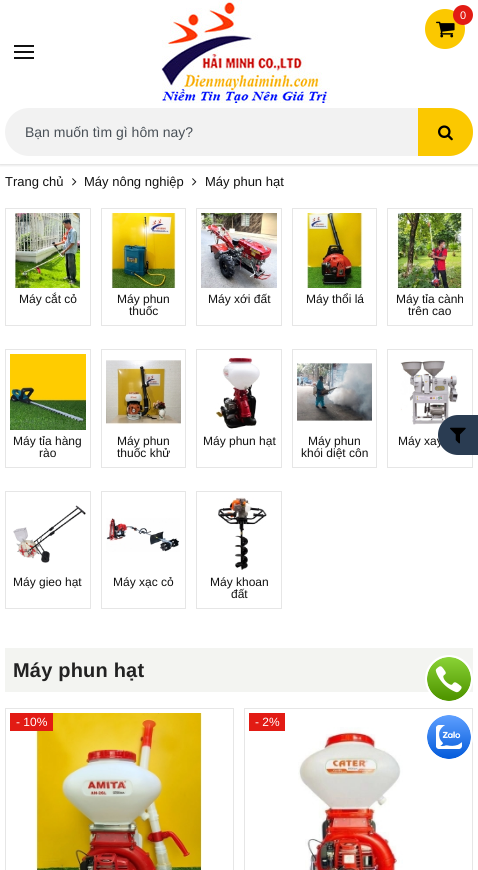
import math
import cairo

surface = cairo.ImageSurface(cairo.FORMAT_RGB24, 478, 870)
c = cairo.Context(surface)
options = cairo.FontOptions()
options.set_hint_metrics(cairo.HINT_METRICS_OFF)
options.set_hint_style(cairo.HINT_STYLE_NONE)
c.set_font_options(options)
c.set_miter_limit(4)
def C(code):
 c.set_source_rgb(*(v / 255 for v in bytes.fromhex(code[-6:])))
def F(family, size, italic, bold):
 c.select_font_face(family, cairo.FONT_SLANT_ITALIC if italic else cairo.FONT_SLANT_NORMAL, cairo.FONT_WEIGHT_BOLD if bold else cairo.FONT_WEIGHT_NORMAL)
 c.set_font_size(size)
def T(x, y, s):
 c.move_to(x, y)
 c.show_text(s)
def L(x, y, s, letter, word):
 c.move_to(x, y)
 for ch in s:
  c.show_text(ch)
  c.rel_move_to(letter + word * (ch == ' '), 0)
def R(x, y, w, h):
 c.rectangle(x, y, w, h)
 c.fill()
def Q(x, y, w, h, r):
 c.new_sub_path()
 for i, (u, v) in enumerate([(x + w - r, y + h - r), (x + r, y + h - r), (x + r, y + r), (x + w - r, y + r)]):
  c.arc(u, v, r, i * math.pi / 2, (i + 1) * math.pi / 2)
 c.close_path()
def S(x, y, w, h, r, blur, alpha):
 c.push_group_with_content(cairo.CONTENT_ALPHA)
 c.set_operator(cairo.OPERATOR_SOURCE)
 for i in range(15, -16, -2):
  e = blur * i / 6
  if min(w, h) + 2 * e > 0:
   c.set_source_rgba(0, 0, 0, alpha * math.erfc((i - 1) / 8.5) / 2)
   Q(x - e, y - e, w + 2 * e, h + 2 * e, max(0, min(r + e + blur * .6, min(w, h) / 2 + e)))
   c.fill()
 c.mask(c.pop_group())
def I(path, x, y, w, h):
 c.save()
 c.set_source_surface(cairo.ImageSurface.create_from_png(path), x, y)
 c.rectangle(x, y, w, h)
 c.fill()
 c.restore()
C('ffffff')
c.paint()
c.save()
c.rectangle(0,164,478,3)
c.clip()
C('000000')
S(0,1,478,164,0,1.5,.15)
c.restore()
C('111111')
R(14,51,20,2)
R(14,45,20,2)
R(14,57,20,2)
I('1.png',161,0,169,103)
C('fbc800')
c.arc(445,29,20,0,2 * math.pi)
c.fill()
I('2.png',436,21,19,17)
C('e21b14')
c.arc(463,15,10,0,2 * math.pi)
c.fill()
F('Liberation Sans',11,0,0)
C('ffffff')
T(460,19,'0')
C('f2f2f2')
Q(5,108,468,48,24)
c.fill()
F('Liberation Sans',14,0,0)
C('495057')
T(25,137,'Bạn muốn tìm gì hôm nay?')
C('fbc800')
c.new_path()
c.move_to(418,108)
c.line_to(449,108)
c.curve_to(462.5,108,473,118.5,473,132)
c.curve_to(473,145.5,462.5,156,449,156)
c.line_to(418,156)
c.close_path()
c.fill()
I('3.png',438,125,15,16)
F('Liberation Sans',13,0,0)
C('111111')
T(5,186,'Trang chủ')
I('4.png',72,178,5,8)
T(84,186,'Máy nông nghiệp')
I('4.png',192,178,5,8)
T(205,186,'Máy phun hạt')
c.rectangle(5.5,208.5,85,117)
C('e6e6e6')
c.set_line_width(1)
c.stroke()
I('5.png',14,213,67,75)
F('Liberation Sans',12,0,0)
C('111111')
T(19,303,'Máy cắt cỏ')
c.rectangle(101.5,208.5,84,117)
C('e6e6e6')
c.stroke()
I('6.png',111,213,65,75)
C('111111')
T(117,303,'Máy phun')
T(129,315,'thuốc')
c.rectangle(196.5,208.5,85,117)
C('e6e6e6')
c.stroke()
I('7.png',201,213,76,75)
C('111111')
T(208,303,'Máy xới đất')
c.rectangle(292.5,208.5,84,117)
C('e6e6e6')
c.stroke()
I('8.png',307,213,56,75)
C('111111')
T(306,303,'Máy thổi lá')
c.rectangle(387.5,208.5,85,117)
C('e6e6e6')
c.stroke()
I('9.png',397,213,66,75)
C('111111')
T(396,303,'Máy tỉa cành')
T(408,315,'trên cao')
c.rectangle(5.5,349.5,85,118)
C('e6e6e6')
c.stroke()
I('10.png',10,354,76,76)
C('111111')
T(13,445,'Máy tỉa hàng')
T(39,457,'rào')
c.rectangle(101.5,349.5,84,118)
C('e6e6e6')
c.stroke()
I('11.png',106,360,75,65)
C('111111')
T(117,445,'Máy phun')
T(117,457,'thuốc khử')
c.rectangle(196.5,349.5,85,118)
C('e6e6e6')
c.stroke()
I('12.png',215,357,45,72)
C('111111')
T(203,445,'Máy phun hạt')
c.rectangle(292.5,349.5,84,118)
C('e6e6e6')
c.stroke()
I('13.png',297,363,75,58)
C('111111')
T(308,445,'Máy phun')
T(301,457,'khói diệt côn')
c.rectangle(387.5,349.5,85,118)
C('e6e6e6')
c.stroke()
I('14.png',400,360,58,65)
C('111111')
T(398,445,'Máy xay')
c.rectangle(5.5,491.5,85,117)
C('e6e6e6')
c.stroke()
I('15.png',13,505,73,58)
C('111111')
T(13,586,'Máy gieo hạt')
c.rectangle(101.5,491.5,84,117)
C('e6e6e6')
c.stroke()
I('16.png',106,518,74,34)
C('111111')
T(113,586,'Máy xạc cỏ')
c.rectangle(196.5,491.5,85,117)
C('e6e6e6')
c.stroke()
I('17.png',218,497,49,73)
C('111111')
T(210,586,'Máy khoan')
T(231,598,'đất')
C('f3f4f1')
R(5,648,468,44)
F('Liberation Sans',20,0,1)
C('222222')
L(13,677,'Máy phun hạt',.2,0)
c.rectangle(5.5,708.5,228,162)
C('e6e6e6')
c.stroke()
I('18.png',35,713,167,157)
C('e21b14')
R(10,713,43,18)
F('Liberation Sans',12,0,0)
C('ffffff')
T(16,726,'- 10%')
c.rectangle(244.5,708.5,228,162)
C('e6e6e6')
c.stroke()
C('e21b14')
R(249,713,36,18)
C('ffffff')
T(255,726,'- 2%')
I('19.png',298,727,105,143)
C('2a3c52')
c.new_path()
c.move_to(458,415)
c.line_to(478,415)
c.line_to(478,455)
c.line_to(458,455)
c.curve_to(447,455,438,446,438,435)
c.curve_to(438,424,447,415,458,415)
c.close_path()
c.fill()
I('20.png',450,427,16,17)
I('21.png',427,657,44,44)
c.arc(449,679,23,0,2 * math.pi)
C('ffffff')
c.set_line_width(2)
c.stroke()
I('22.png',427,715,44,44)
c.arc(449,737,23,0,2 * math.pi)
c.stroke()
surface.write_to_png('o.png')
